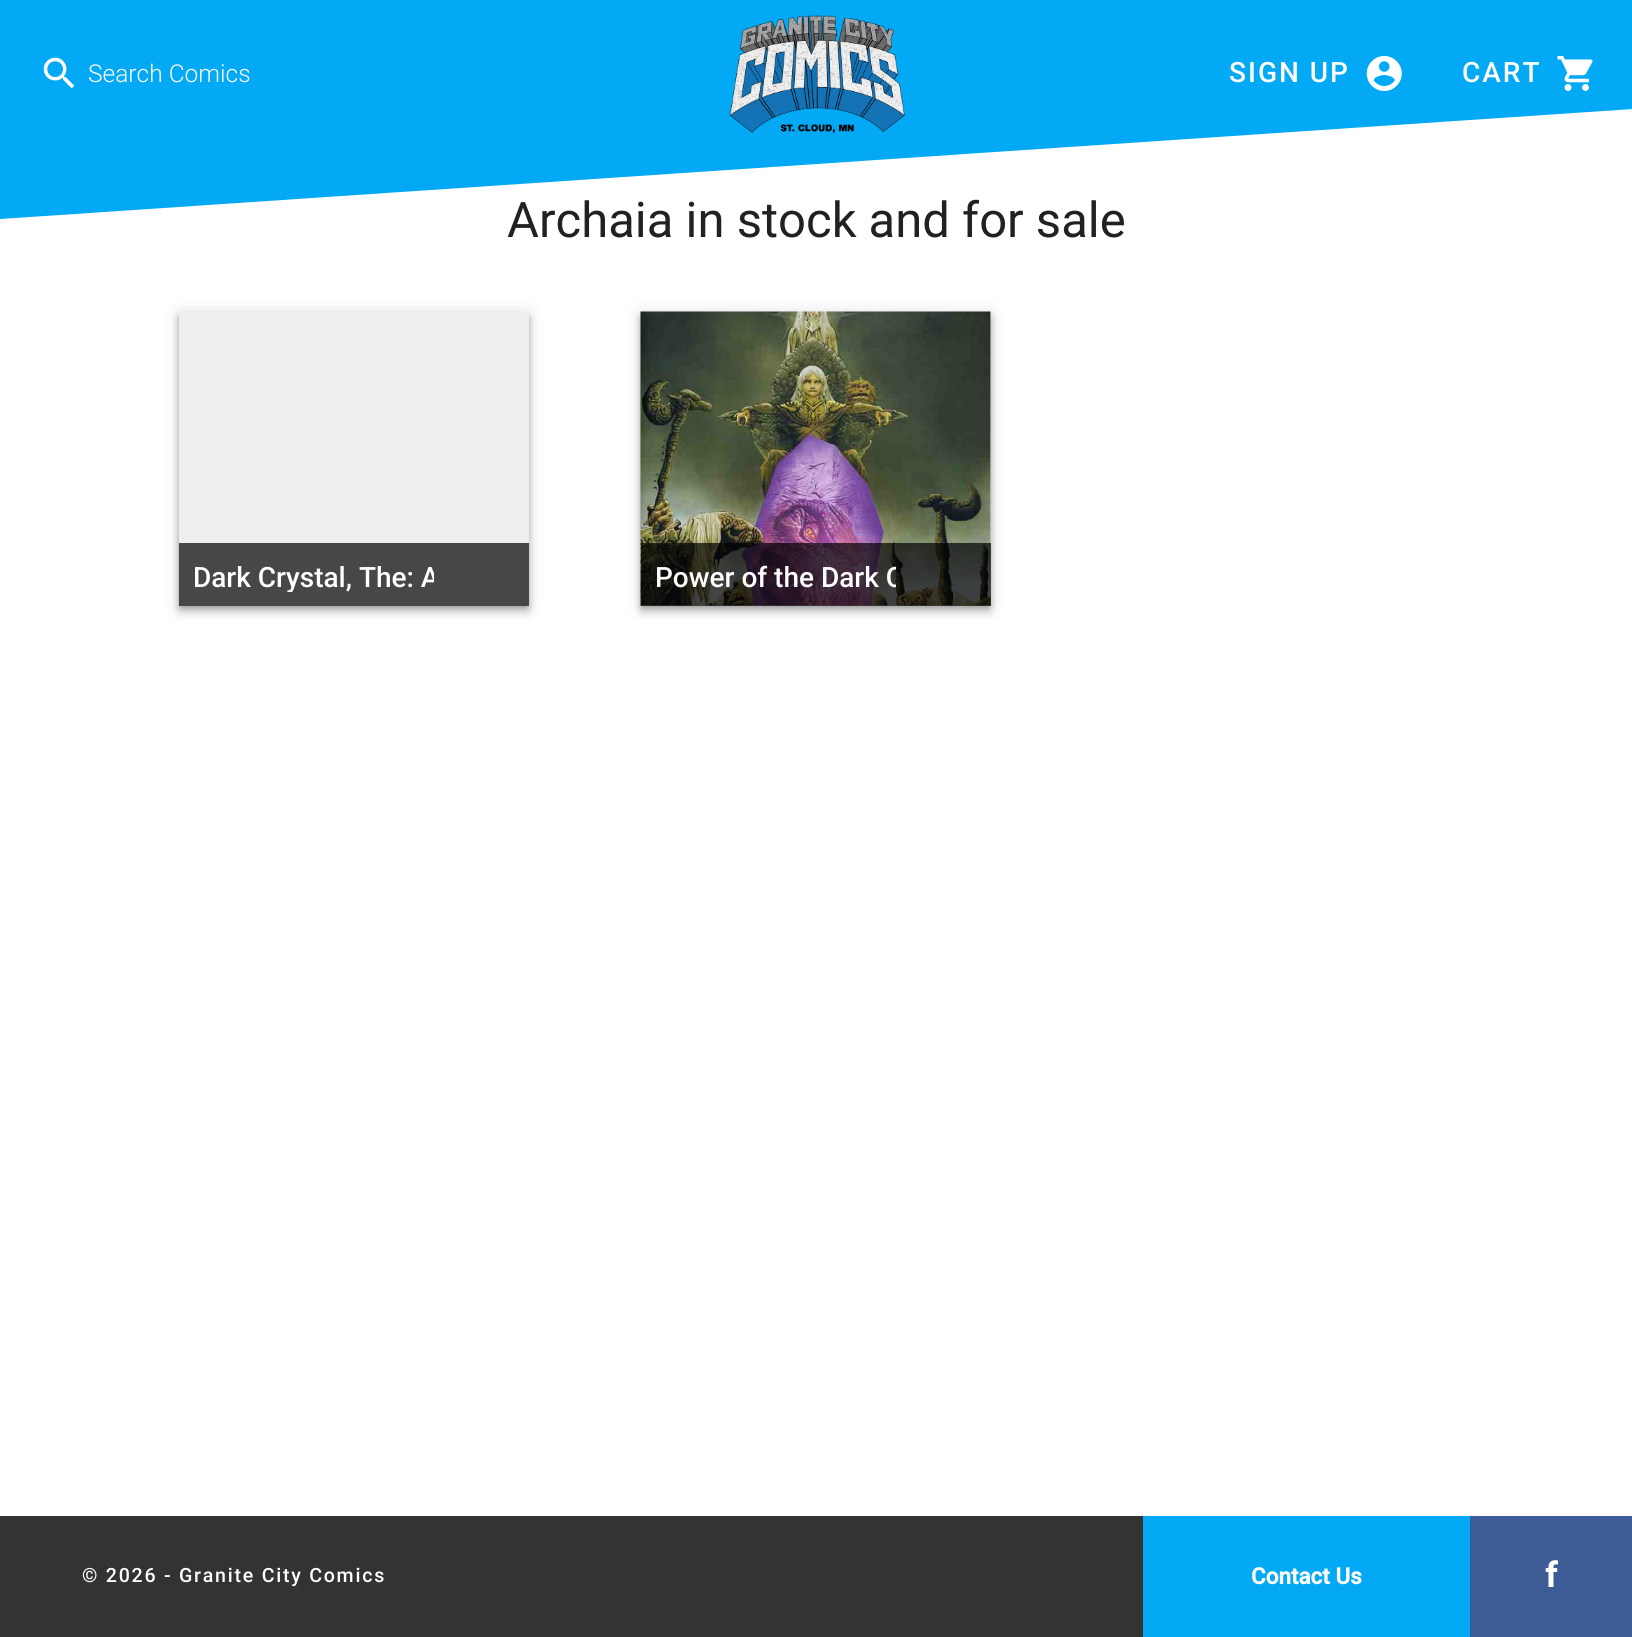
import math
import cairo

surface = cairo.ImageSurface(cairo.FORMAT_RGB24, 1632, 1637)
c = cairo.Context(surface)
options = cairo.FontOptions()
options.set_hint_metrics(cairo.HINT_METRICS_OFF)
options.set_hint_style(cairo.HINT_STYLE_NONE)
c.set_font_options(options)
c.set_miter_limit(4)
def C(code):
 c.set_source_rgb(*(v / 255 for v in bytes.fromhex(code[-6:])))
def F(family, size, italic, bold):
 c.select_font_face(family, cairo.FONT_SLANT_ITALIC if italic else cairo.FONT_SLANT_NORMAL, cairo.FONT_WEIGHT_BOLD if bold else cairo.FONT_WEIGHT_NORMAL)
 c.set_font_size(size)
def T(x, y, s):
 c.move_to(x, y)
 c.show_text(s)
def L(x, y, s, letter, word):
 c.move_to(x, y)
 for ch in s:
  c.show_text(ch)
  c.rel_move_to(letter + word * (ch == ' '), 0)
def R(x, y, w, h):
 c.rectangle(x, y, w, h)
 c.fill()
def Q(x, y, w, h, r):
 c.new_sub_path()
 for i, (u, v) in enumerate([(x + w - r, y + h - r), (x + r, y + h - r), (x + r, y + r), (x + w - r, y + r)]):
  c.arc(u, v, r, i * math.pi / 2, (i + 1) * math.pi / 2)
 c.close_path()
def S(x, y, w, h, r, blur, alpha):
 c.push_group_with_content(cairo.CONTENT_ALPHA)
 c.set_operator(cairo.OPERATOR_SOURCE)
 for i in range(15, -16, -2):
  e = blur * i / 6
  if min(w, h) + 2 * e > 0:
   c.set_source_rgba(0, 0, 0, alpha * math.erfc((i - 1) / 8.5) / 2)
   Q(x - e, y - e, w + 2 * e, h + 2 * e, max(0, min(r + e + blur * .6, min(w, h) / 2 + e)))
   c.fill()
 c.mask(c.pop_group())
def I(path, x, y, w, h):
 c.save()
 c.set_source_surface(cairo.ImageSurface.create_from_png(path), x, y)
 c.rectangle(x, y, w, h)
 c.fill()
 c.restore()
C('ffffff')
c.paint()
C('03a9f4')
c.new_path()
c.move_to(0,0)
c.line_to(0,219)
c.line_to(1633,109)
c.line_to(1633,0)
c.close_path()
c.fill()
I('1.png',43,57,32,32)
F('Roboto Light',24.5,0,0)
C('ffffff')
T(88,82,'Search Comics')
I('2.png',729,15,176,118)
F('Roboto Medium',28,0,0)
L(1229,82,'SIGN UP',2,0)
I('3.png',1366,56,36,35)
L(1462,82,'CART',2,0)
I('4.png',1557,56,36,35)
F('Roboto',49,0,0)
C('212121')
T(507,237,'Archaia in stock and for sale')
C('000000')
S(180,317,347,290,0,3.5,.3)
S(179,313,350,294,0,9,.12)
S(179,319,350,294,0,4.5,.14)
C('eeeeee')
R(179,312,350,231)
C('474747')
R(179,543,350,63)
c.save()
c.rectangle(193,557,241,35)
c.clip()
F('Roboto Medium',28,0,0)
C('ffffff')
T(193,587,'Dark Crystal, The: A')
c.restore()
C('000000')
S(642,317,347,290,0,3.5,.3)
S(641,313,350,294,0,9,.12)
S(641,319,350,294,0,4.5,.14)
C('eeeeee')
R(641,312,350,294)
I('5.png',640,311,351,295)
c.set_source_rgba(0,0,0,0.7)
R(641,543,350,63)
c.save()
c.rectangle(655,557,241,35)
c.clip()
F('Roboto Medium',28,0,0)
C('ffffff')
T(655,587,'Power of the Dark C')
c.restore()
C('333333')
R(0,1516,1143,121)
F('Roboto Medium',19.6,0,0)
C('ffffff')
L(82,1582,'© 2026 - Granite City Comics',1.75,0)
C('03a9f4')
R(1143,1516,327,121)
F('Roboto',22.5,0,1)
C('ffffff')
T(1251,1584,'Contact Us')
C('3d5b94')
R(1470,1516,162,121)
F('Roboto',34,0,1)
C('ffffff')
T(1545,1587,'f')
surface.write_to_png('o.png')
